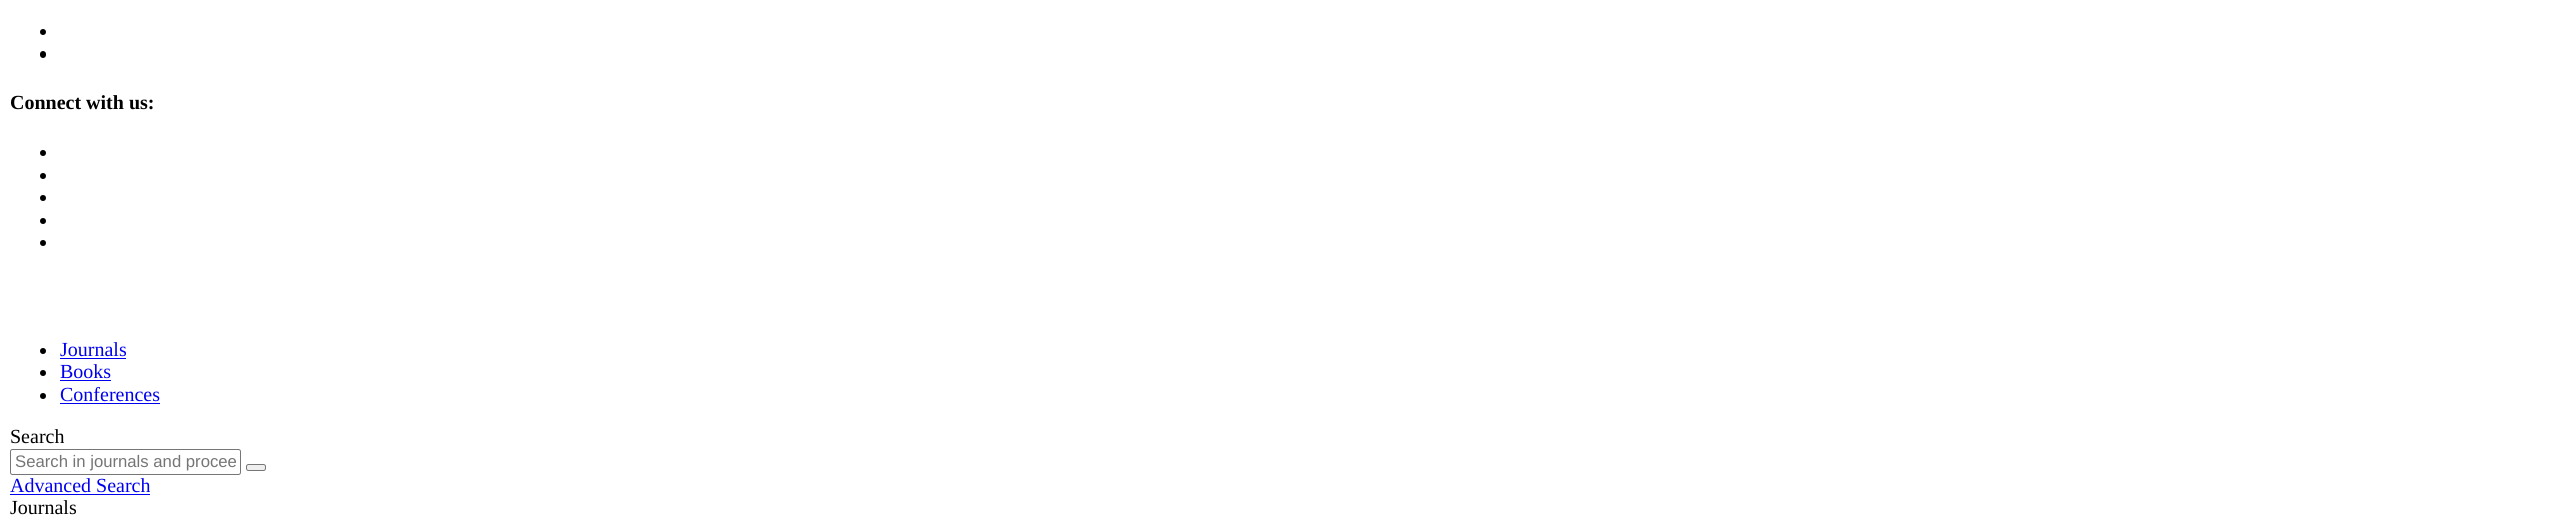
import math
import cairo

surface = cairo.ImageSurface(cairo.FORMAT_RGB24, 2571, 516)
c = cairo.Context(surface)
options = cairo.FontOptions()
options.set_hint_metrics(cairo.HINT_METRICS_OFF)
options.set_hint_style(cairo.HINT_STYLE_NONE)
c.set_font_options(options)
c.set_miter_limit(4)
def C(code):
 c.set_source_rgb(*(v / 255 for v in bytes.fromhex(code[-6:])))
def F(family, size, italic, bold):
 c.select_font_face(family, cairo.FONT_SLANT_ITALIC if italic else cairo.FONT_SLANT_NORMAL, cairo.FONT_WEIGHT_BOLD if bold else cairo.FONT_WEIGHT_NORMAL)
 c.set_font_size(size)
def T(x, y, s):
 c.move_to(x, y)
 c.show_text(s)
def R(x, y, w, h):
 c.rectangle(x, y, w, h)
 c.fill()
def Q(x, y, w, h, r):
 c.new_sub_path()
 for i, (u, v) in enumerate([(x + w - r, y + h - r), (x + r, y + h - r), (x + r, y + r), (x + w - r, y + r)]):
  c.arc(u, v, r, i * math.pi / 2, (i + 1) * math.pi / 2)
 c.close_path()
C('ffffff')
c.paint()
C('000000')
c.arc(43,32,3,0,2 * math.pi)
c.fill()
Q(40,51,6,7,3)
c.fill()
F('Liberation Serif',20,0,1)
T(10,109,'Connect with us:')
c.new_path()
c.arc(43,153,3,0,2 * math.pi)
c.fill()
c.arc(43,176,3,0,2 * math.pi)
c.fill()
c.arc(43,198,3,0,2 * math.pi)
c.fill()
c.arc(43,221,3,0,2 * math.pi)
c.fill()
c.arc(43,243,3,0,2 * math.pi)
c.fill()
c.arc(43,351,3,0,2 * math.pi)
c.fill()
F('Liberation Serif',20,0,0)
C('0000ee')
T(60,356,'Journals')
R(60,358,66,1)
C('000000')
c.new_path()
c.arc(43,373,3,0,2 * math.pi)
c.fill()
C('0000ee')
T(60,378,'Books')
R(60,380,51,1)
C('000000')
c.new_path()
c.arc(43,396,3,0,2 * math.pi)
c.fill()
C('0000ee')
T(60,401,'Conferences')
R(60,403,100,1)
C('000000')
T(10,443,'Search')
Q(10.5,449.5,230,25,2)
C('767676')
c.set_line_width(1)
c.stroke()
F('Liberation Sans',16.7,0,0)
C('757575')
T(15,467,'Search in journals and procee')
C('efefef')
Q(246.5,464.5,19,6,2)
c.fill_preserve()
C('767676')
c.stroke()
F('Liberation Serif',20,0,0)
C('0000ee')
T(10,492,'Advanced Search')
R(10,494,140,1)
C('000000')
T(10,514,'Journals')
surface.write_to_png('o.png')
